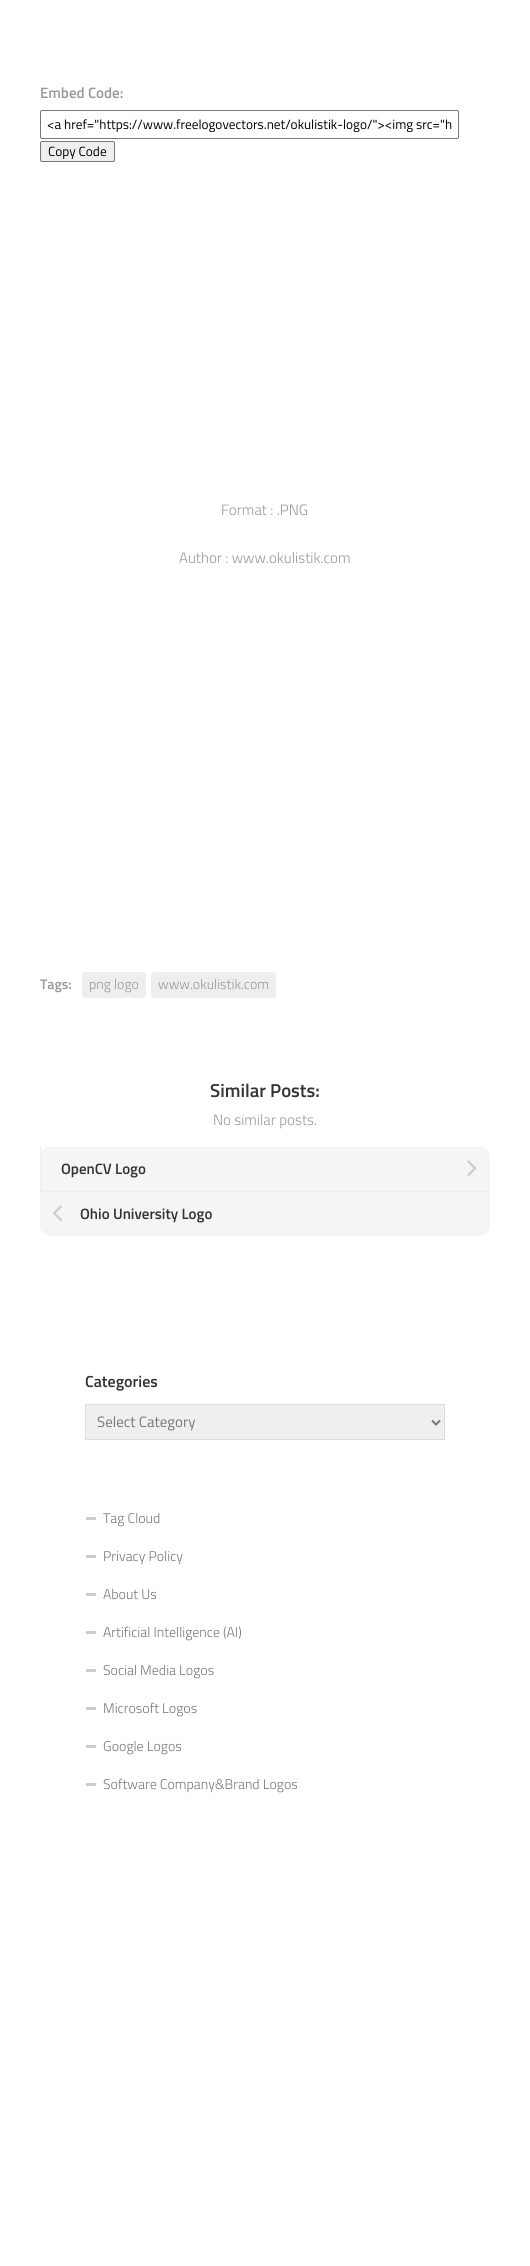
import math
import cairo

surface = cairo.ImageSurface(cairo.FORMAT_RGB24, 530, 2266)
c = cairo.Context(surface)
options = cairo.FontOptions()
options.set_hint_metrics(cairo.HINT_METRICS_OFF)
options.set_hint_style(cairo.HINT_STYLE_NONE)
c.set_font_options(options)
c.set_miter_limit(4)
def C(code):
 c.set_source_rgb(*(v / 255 for v in bytes.fromhex(code[-6:])))
def F(family, size, italic, bold):
 c.select_font_face(family, cairo.FONT_SLANT_ITALIC if italic else cairo.FONT_SLANT_NORMAL, cairo.FONT_WEIGHT_BOLD if bold else cairo.FONT_WEIGHT_NORMAL)
 c.set_font_size(size)
def T(x, y, s):
 c.move_to(x, y)
 c.show_text(s)
def R(x, y, w, h):
 c.rectangle(x, y, w, h)
 c.fill()
def Q(x, y, w, h, r):
 c.new_sub_path()
 for i, (u, v) in enumerate([(x + w - r, y + h - r), (x + r, y + h - r), (x + r, y + r), (x + w - r, y + r)]):
  c.arc(u, v, r, i * math.pi / 2, (i + 1) * math.pi / 2)
 c.close_path()
def I(path, x, y, w, h):
 c.save()
 c.set_source_surface(cairo.ImageSurface.create_from_png(path), x, y)
 c.rectangle(x, y, w, h)
 c.fill()
 c.restore()
C('ffffff')
c.paint()
F('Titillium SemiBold',15,0,0)
C('999999')
T(40,98,'Embed Code:')
Q(40.5,110.5,418,28,1.5)
C('767676')
c.set_line_width(1)
c.stroke()
c.save()
c.rectangle(47,117,405,15)
c.clip()
F('Titillium',13.3,0,0)
C('000000')
T(47,129,'<a href="https://www.freelogovectors.net/okulistik-logo/"><img src="h')
c.restore()
C('efefef')
Q(40.5,141.5,74,20,1.5)
c.fill_preserve()
C('767676')
c.stroke()
F('Titillium',13.3,0,0)
C('000000')
T(48,156,'Copy Code')
F('Titillium Light',15,0,0)
C('999999')
T(221,515,'Format : .PNG')
T(179,563,'Author : www.okulistik.com')
F('Titillium SemiBold',14,0,0)
T(40,989,'Tags:')
C('eeeeee')
Q(82,972,64,26,3)
c.fill()
F('Titillium Light',14,0,0)
C('999999')
T(89,989,'png logo')
C('eeeeee')
Q(151,972,125,26,3)
c.fill()
C('999999')
T(158,989,'www.okulistik.com')
F('Titillium SemiBold',18.75,0,0)
C('333333')
T(210,1097,'Similar Posts:')
F('Titillium Light',15,0,0)
C('999999')
T(213,1125,'No similar posts.')
C('f5f5f5')
Q(40,1147,450,89,10)
c.fill()
C('eeeeee')
R(40,1147,1,44)
F('Titillium SemiBold',15,0,0)
C('333333')
T(61,1174,'OpenCV Logo')
I('1.png',467,1160,10,16)
C('eeeeee')
R(40,1191,450,1)
I('2.png',53,1205,9,16)
C('333333')
T(80,1219,'Ohio University Logo')
F('Titillium SemiBold',16,0,0)
T(85,1387,'Categories')
C('efefef')
c.rectangle(85.5,1404.5,359,35)
c.fill_preserve()
C('dddddd')
c.stroke()
c.new_path()
c.move_to(432,1420.5)
c.line_to(436,1424.5)
c.line_to(440,1420.5)
C('777777')
c.set_line_width(2)
c.stroke()
F('Titillium',15,0,0)
T(97,1427,'Select Category')
C('cccccc')
R(86,1517,10,3)
F('Titillium Light',14,0,0)
C('777777')
T(103,1523,'Tag Cloud')
C('cccccc')
R(86,1555,10,3)
C('777777')
T(103,1561,'Privacy Policy')
C('cccccc')
R(86,1593,10,3)
C('777777')
T(103,1599,'About Us')
C('cccccc')
R(86,1631,10,3)
C('777777')
T(103,1637,'Artificial Intelligence (AI)')
C('cccccc')
R(86,1669,10,3)
C('777777')
T(103,1675,'Social Media Logos')
C('cccccc')
R(86,1707,10,3)
C('777777')
T(103,1713,'Microsoft Logos')
C('cccccc')
R(86,1745,10,3)
C('777777')
T(103,1751,'Google Logos')
C('cccccc')
R(86,1783,10,3)
C('777777')
T(103,1789,'Software Company&Brand Logos')
surface.write_to_png('o.png')
